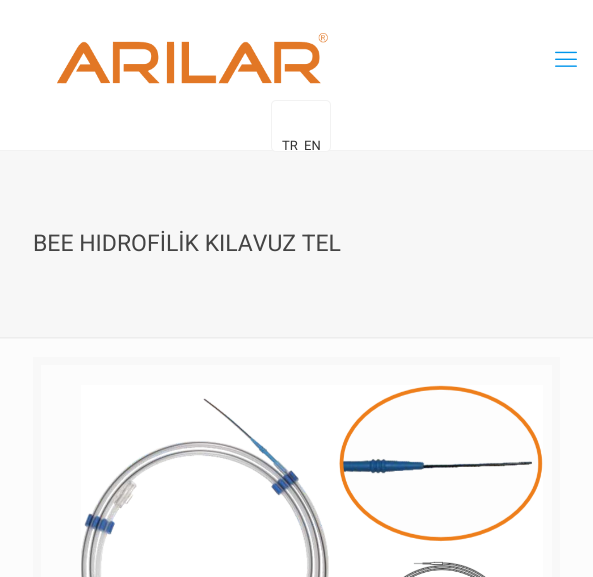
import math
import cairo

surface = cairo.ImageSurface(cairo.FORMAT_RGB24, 593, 577)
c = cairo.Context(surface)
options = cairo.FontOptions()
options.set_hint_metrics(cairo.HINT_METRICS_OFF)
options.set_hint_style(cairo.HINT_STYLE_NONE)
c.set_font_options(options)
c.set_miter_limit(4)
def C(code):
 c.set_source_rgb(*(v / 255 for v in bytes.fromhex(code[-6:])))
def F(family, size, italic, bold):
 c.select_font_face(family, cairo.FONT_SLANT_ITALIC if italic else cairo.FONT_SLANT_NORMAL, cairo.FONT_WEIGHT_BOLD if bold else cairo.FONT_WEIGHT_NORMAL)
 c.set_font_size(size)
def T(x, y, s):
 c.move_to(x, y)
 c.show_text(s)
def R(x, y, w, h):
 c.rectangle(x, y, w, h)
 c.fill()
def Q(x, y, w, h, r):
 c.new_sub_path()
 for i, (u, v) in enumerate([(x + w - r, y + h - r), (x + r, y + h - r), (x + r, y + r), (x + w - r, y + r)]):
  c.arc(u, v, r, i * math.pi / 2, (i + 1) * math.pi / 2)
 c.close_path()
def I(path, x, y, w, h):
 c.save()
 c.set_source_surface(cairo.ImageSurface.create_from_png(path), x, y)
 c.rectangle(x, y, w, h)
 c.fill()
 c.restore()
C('fcfcfc')
c.paint()
C('ffffff')
R(0,0,593,150)
C('f2f2f2')
R(0,150,593,1)
I('1.png',57,33,271,51)
I('2.png',555,51,22,16)
C('f7f7f7')
R(0,151,593,186)
C('ffffff')
Q(271.5,100.5,59,51,4.5)
c.fill_preserve()
C('f2f2f2')
c.set_line_width(1)
c.stroke()
F('Roboto',13,0,0)
C('333333')
T(282,150,'TR')
T(304,150,'EN')
F('Roboto',23,0,0)
C('444444')
T(33,251,'BEE HIDROFİLİK KILAVUZ TEL')
I('3.png',0,337,593,2)
c.rectangle(37,361,519,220)
C('f8f8f8')
c.set_line_width(8)
c.stroke()
I('4.png',81,385,462,192)
surface.write_to_png('o.png')
